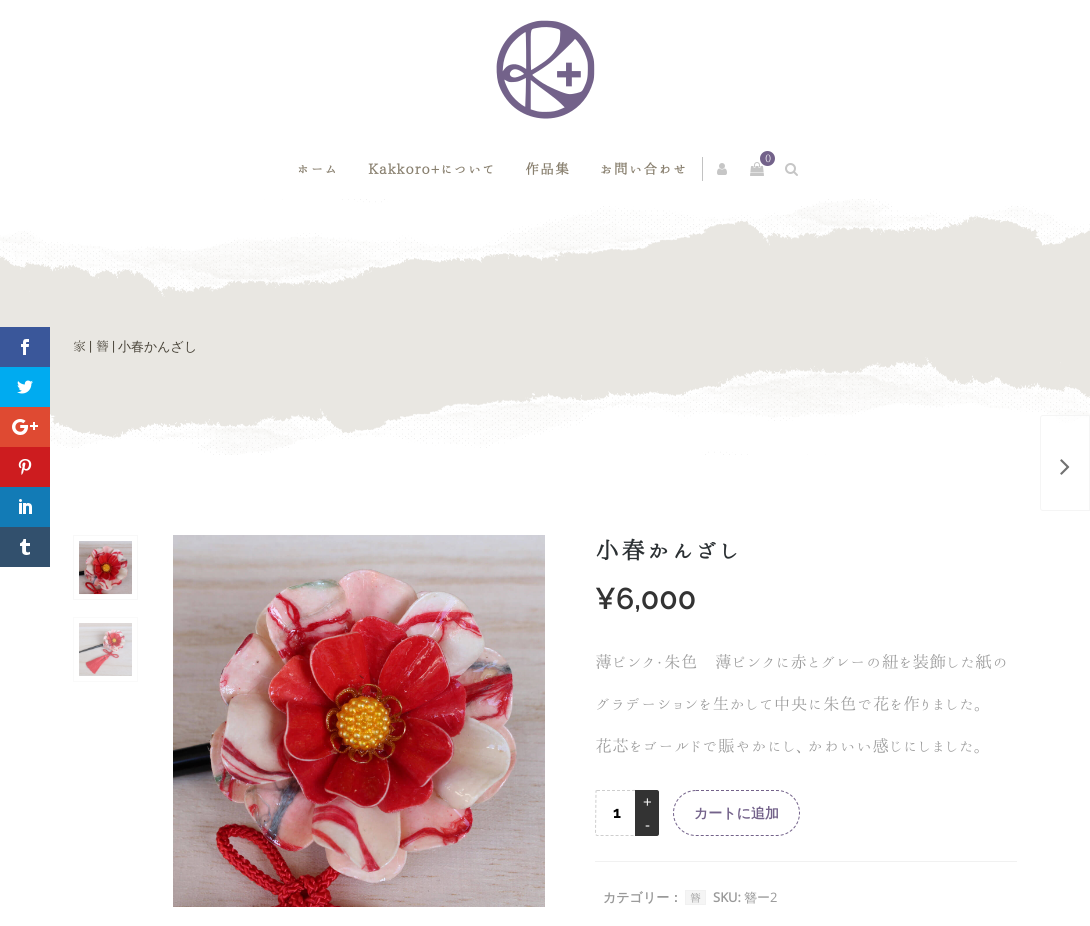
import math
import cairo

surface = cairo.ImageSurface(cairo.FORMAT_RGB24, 1090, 926)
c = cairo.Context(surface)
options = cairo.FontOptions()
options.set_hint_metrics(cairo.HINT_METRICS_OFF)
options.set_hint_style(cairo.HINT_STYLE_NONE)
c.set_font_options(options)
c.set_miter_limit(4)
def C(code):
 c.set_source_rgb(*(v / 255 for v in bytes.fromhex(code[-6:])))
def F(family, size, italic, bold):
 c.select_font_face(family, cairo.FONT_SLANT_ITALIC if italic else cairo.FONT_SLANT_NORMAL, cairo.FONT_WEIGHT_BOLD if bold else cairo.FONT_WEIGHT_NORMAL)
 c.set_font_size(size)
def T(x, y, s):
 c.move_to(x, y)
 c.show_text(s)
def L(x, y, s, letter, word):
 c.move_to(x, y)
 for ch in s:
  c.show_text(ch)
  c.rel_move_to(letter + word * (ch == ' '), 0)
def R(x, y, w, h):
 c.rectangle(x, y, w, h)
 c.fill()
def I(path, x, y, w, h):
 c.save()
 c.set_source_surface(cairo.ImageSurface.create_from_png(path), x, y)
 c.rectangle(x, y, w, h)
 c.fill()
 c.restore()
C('ffffff')
c.paint()
C('e9e7e2')
R(0,199,1090,256)
C('3a579a')
R(0,327,50,40)
I('1.png',21,339,8,16)
C('00abf0')
R(0,367,50,40)
I('2.png',17,380,16,14)
C('df4a32')
R(0,407,50,40)
I('3.png',12,419,26,16)
C('cd1c1f')
R(0,447,50,40)
I('4.png',18,459,14,16)
C('127bb6')
R(0,487,50,40)
I('5.png',19,499,13,15)
C('32506d')
R(0,527,50,40)
I('6.png',20,539,10,16)
I('7.png',496,20,99,99)
C('c2c2c2')
R(702,157,1,24)
I('8.png',717,163,10,12)
I('9.png',750,162,14,14)
C('73628a')
c.arc(767.5,158.5,7.5,0,2 * math.pi)
c.fill()
F('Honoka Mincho',10,0,0)
C('ffffff')
T(765,162,'0')
I('10.png',785,163,13,13)
F('Honoka Mincho',14,0,1)
C('887f6e')
L(296,174,'ホーム',1,0)
L(368,174,'Kakkoro+について',1,0)
L(525,174,'作品集',1,0)
L(600,174,'お問い合わせ',1,0)
I('11.png',0,199,1090,98)
F('Honoka Mincho',13,0,0)
C('474237')
T(73,351,'家')
F('Raleway Medium',13,0,0)
T(89,351,'|')
F('Honoka Mincho',13,0,0)
T(96,351,'簪')
F('Raleway Medium',13,0,0)
T(112,351,'|')
F('WenQuanYi Zen Hei Medium',13,0,0)
T(118,351,'小春かんざし')
I('12.png',50,357,1040,98)
c.rectangle(73.5,535.5,64,64)
C('f8f8f8')
c.set_line_width(1)
c.stroke()
I('13.png',79,541,53,54)
c.rectangle(73.5,617.5,64,64)
C('fafafa')
c.stroke()
I('14.png',79,623,53,53)
I('15.png',173,535,372,372)
F('Honoka Mincho',24,0,1)
C('2b3033')
L(595,559,'小春かんざし',2,0)
F('Raleway SemiBold',30,0,0)
C('333333')
T(595,609,'¥6,000')
F('Honoka Mincho',17,0,0)
C('999999')
T(595,668,'薄ピンク・朱色　薄ピンクに赤とグレーの紐を装飾した紙の')
T(595,710,'グラデーションを生かして中央に朱色で花を作りました。')
T(595,752,'花芯をゴールドで賑やかにし、かわいい感じにしました。')
c.new_path()
c.move_to(597,790.5)
c.line_to(630.5,790.5)
c.curve_to(640,790.5,638.5,789,638.5,799)
c.line_to(638.5,827)
c.curve_to(638.5,837,640,835.5,630.5,835.5)
c.line_to(597,835.5)
c.line_to(595.5,834.5)
c.line_to(596,791)
c.close_path()
C('cecece')
c.set_dash([3,2])
c.stroke()
C('333333')
c.new_path()
c.move_to(635,790)
c.line_to(657,790)
c.curve_to(658,790,659,791,659,792)
c.line_to(659,813)
c.line_to(635,813)
c.close_path()
c.fill()
F('Liberation Sans',15,0,0)
C('f5f5f5')
T(643,807,'+')
F('Raleway',16,0,1)
C('000000')
T(613,818,'1')
C('333333')
c.new_path()
c.move_to(635,813)
c.line_to(659,813)
c.line_to(659,834)
c.curve_to(659,835,658,836,657,836)
c.line_to(635,836)
c.close_path()
c.fill()
F('Liberation Sans',15,0,0)
C('f5f5f5')
T(645,830,'-')
c.new_path()
c.move_to(696,790.5)
c.line_to(777,790.5)
c.curve_to(789.5,790.5,799.5,800.5,799.5,813)
c.curve_to(799.5,825.5,789.5,835.5,777,835.5)
c.line_to(696,835.5)
c.curve_to(683.5,835.5,673.5,825.5,673.5,813)
c.curve_to(673.5,800.5,683.5,790.5,696,790.5)
c.close_path()
C('73628a')
c.stroke()
F('WenQuanYi Zen Hei',14,0,1)
T(694,818,'カートに追加')
C('f1f1f1')
R(595,861,422,1)
F('WenQuanYi Zen Hei',13,0,1)
C('999999')
T(603,902,'カテゴリー：')
C('f5f5f5')
c.rectangle(685.5,890.5,20,14)
c.fill_preserve()
C('f1f1f1')
c.set_dash([])
c.stroke()
F('Honoka Mincho',11,0,0)
C('999999')
T(690,902,'簪')
F('Open Sans',13,0,1)
T(713,902,'SKU:')
F('WenQuanYi Zen Hei Medium',13,0,0)
T(744,902,'簪ー')
F('Open Sans',13,0,0)
T(770,902,'2')
c.set_source_rgba(1,1,1,0.7)
c.new_path()
c.move_to(1043,415)
c.line_to(1090,415)
c.line_to(1090,511)
c.line_to(1043,511)
c.curve_to(1041.5,511,1040,509.5,1040,508)
c.line_to(1040,418)
c.curve_to(1040,416.5,1041.5,415,1043,415)
c.close_path()
c.fill()
c.new_path()
c.move_to(1043,415.5)
c.line_to(1089.5,415.5)
c.line_to(1089.5,510.5)
c.line_to(1043,510.5)
c.curve_to(1041.5,510.5,1040.5,509.5,1040.5,508)
c.line_to(1040.5,418)
c.curve_to(1040.5,416.5,1041.5,415.5,1043,415.5)
c.close_path()
c.set_source_rgba(0.945,0.945,0.945,0.7)
c.stroke()
I('16.png',1060,459,10,16)
surface.write_to_png('o.png')
